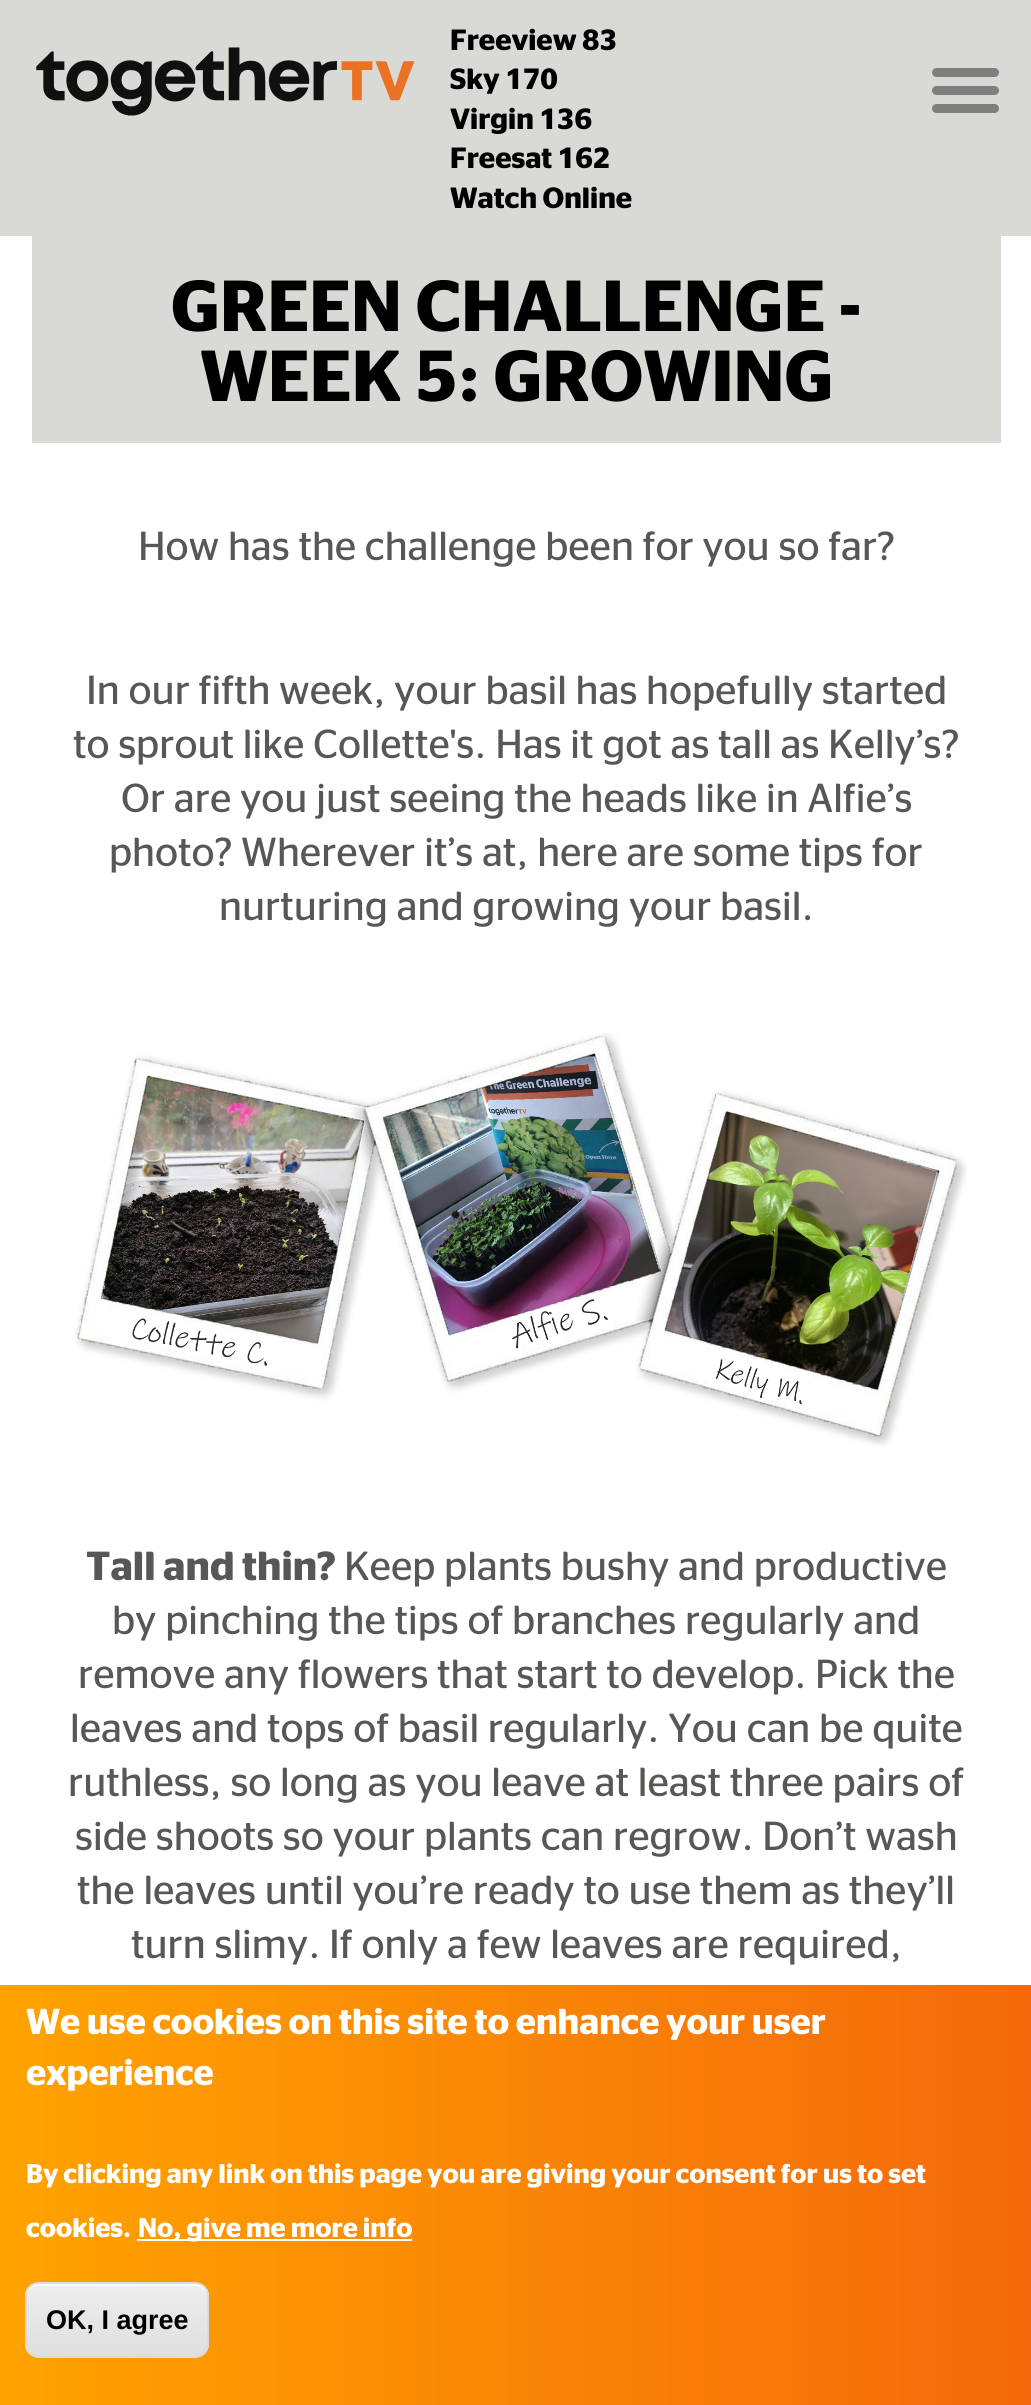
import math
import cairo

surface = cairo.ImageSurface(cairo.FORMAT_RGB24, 1031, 2405)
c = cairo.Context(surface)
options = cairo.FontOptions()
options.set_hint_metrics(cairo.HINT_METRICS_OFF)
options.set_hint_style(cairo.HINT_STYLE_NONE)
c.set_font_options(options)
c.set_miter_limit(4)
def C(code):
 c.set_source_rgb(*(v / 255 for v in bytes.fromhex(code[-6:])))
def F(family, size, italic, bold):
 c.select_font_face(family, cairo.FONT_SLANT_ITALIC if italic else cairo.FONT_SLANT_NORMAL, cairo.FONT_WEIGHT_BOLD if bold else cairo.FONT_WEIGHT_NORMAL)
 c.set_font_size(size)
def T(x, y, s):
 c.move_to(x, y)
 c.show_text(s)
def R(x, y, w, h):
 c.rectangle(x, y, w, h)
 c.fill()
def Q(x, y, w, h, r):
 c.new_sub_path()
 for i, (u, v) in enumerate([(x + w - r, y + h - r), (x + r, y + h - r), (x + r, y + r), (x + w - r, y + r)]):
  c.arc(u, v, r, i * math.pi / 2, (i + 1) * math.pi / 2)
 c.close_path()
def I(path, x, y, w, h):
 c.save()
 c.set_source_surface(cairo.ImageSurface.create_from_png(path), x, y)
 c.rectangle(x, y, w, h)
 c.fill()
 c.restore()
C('ffffff')
c.paint()
C('d9d9d6')
R(0,0,1031,236)
I('1.png',36,47,379,69)
F('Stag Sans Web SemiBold',29.25,0,0)
C('000000')
T(450,50,'Freeview 83')
T(450,89,'Sky 170')
T(450,129,'Virgin 136')
T(450,168,'Freesat 162')
T(450,208,'Watch Online')
C('7f7f7f')
Q(932,68,67,9,4.5)
c.fill()
Q(932,86,67,9,4.5)
c.fill()
Q(932,104,67,9,4.5)
c.fill()
C('d9d9d6')
R(32,236,969,207)
F('Stag Sans Web SemiBold',72,0,0)
C('000000')
T(171,331,'GREEN CHALLENGE -')
T(200,401,'WEEK 5: GROWING')
F('Stag Sans Web',40.5,0,0)
C('575756')
T(138,560,'How has the challenge been for you so far?')
T(86,704,'In our fifth week, your basil has hopefully started')
T(73,758,'to sprout like Collette\'s. Has it got as tall as Kelly’s?')
T(121,812,'Or are you just seeing the heads like in Alfie’s')
T(109,866,'photo? Wherever it’s at, here are some tips for')
T(219,920,'nurturing and growing your basil.')
I('2.png',75,1033,892,413)
F('Stag Sans Web SemiBold',40.5,0,0)
T(86,1580,'Tall and thin?')
F('Stag Sans Web',40.5,0,0)
T(344,1580,'Keep plants bushy and productive')
T(112,1634,'by pinching the tips of branches regularly and')
T(78,1688,'remove any flowers that start to develop.')
T(815,1688,'Pick the')
T(70,1742,'leaves and tops of basil regularly. You can be quite')
T(68,1796,'ruthless, so long as you leave at least three pairs of')
T(75,1850,'side shoots so your plants can regrow. Don’t wash')
T(77,1904,'the leaves until you’re ready to use them as they’ll')
T(131,1958,'turn slimy. If only a few leaves are required,')
gradient = cairo.LinearGradient(0,2195,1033,2195)
gradient.add_color_stop_rgba(0,1,0.639,0,1)
gradient.add_color_stop_rgba(1,0.957,0.412,0.043,1)
c.set_source(gradient)
R(0,1985,1031,420)
F('Stag Sans Web SemiBold',36,0,0)
C('ffffff')
T(26,2034,'We use cookies on this site to enhance your user')
T(26,2085,'experience')
F('Stag Sans Web SemiBold',27,0,0)
T(26,2183,'By clicking any link on this page you are giving your consent for us to set')
T(26,2237,'cookies.')
R(137,2239,275,2)
T(138,2237,'No, give me more info')
c.save()
Q(25,2282,184,76,14)
c.clip()
gradient = cairo.LinearGradient(117,2284,117,2356)
gradient.add_color_stop_rgba(.05,0.929,0.929,0.929,1)
gradient.add_color_stop_rgba(1,0.875,0.875,0.875,1)
c.set_source(gradient)
R(25,2284,184,72)
c.restore()
c.new_path()
c.move_to(38,2286)
c.line_to(196,2286)
c.curve_to(202,2286,207,2291,207,2297)
c.line_to(207,2295)
c.curve_to(207,2289,202,2284,196,2284)
c.line_to(38,2284)
c.curve_to(32,2284,27,2289,27,2295)
c.line_to(27,2297)
c.curve_to(27,2291,32,2286,38,2286)
c.close_path()
c.fill()
Q(26,2283,182,74,13)
C('dcdcdc')
c.stroke()
F('Liberation Sans',27,0,1)
C('000000')
T(46,2329,'OK, I agree')
surface.write_to_png('o.png')
